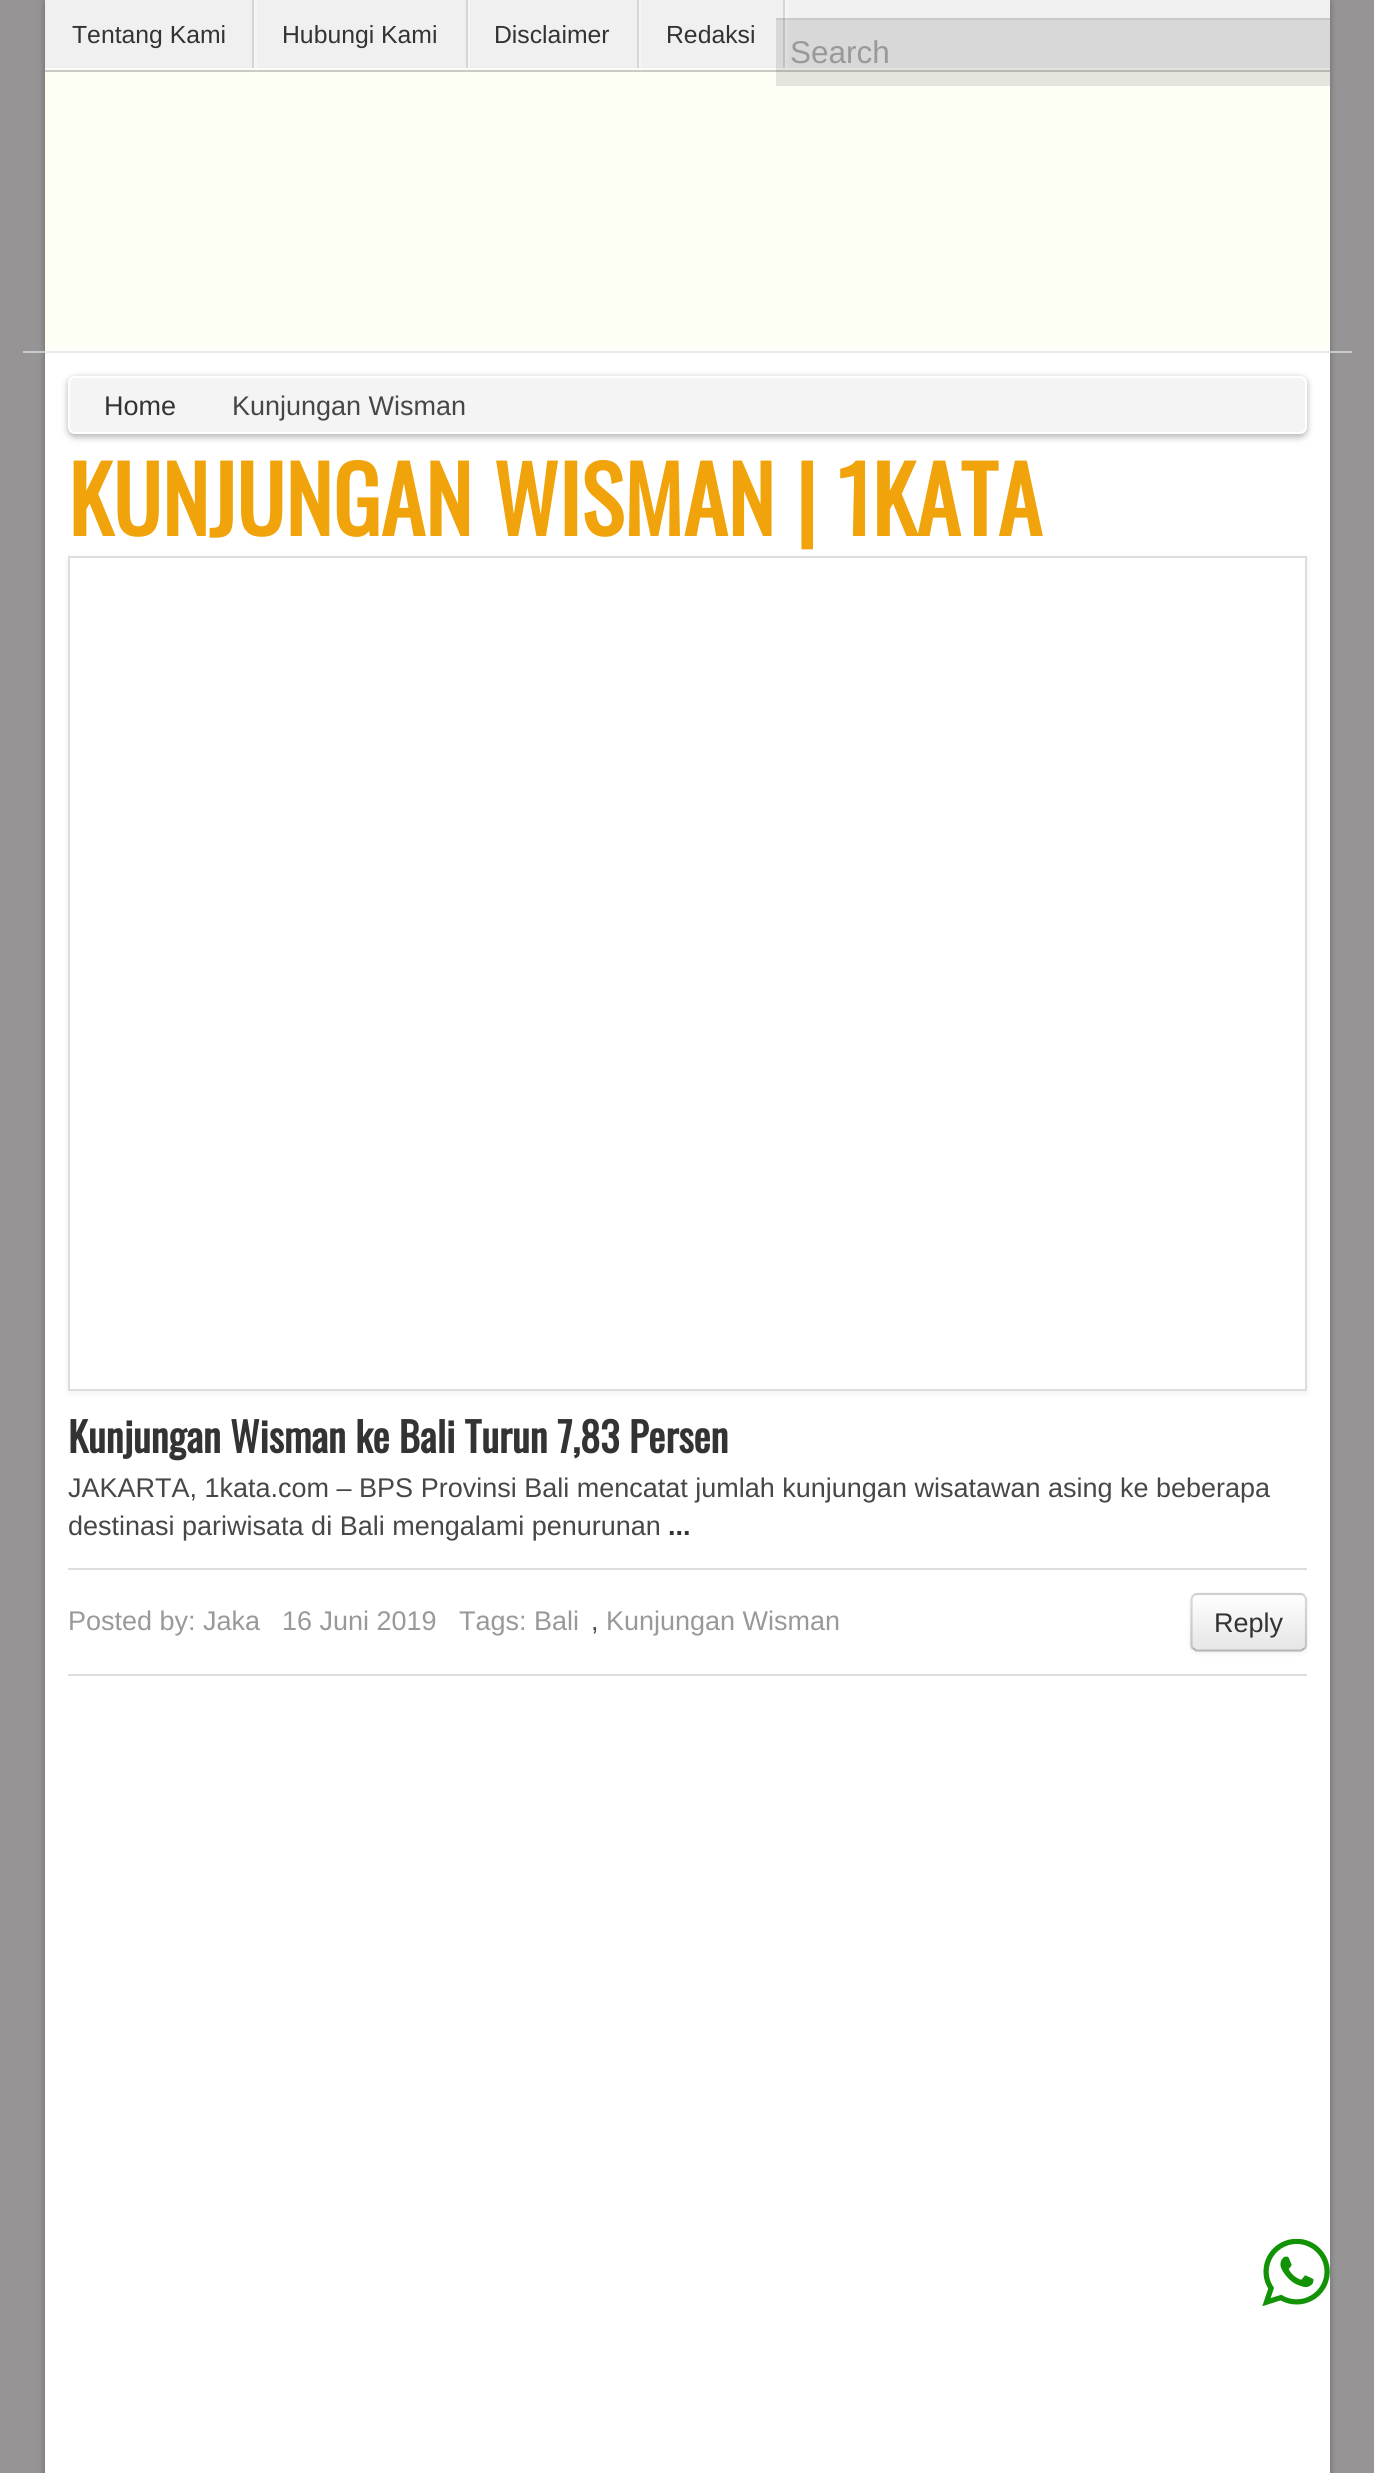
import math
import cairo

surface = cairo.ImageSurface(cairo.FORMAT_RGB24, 1374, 2473)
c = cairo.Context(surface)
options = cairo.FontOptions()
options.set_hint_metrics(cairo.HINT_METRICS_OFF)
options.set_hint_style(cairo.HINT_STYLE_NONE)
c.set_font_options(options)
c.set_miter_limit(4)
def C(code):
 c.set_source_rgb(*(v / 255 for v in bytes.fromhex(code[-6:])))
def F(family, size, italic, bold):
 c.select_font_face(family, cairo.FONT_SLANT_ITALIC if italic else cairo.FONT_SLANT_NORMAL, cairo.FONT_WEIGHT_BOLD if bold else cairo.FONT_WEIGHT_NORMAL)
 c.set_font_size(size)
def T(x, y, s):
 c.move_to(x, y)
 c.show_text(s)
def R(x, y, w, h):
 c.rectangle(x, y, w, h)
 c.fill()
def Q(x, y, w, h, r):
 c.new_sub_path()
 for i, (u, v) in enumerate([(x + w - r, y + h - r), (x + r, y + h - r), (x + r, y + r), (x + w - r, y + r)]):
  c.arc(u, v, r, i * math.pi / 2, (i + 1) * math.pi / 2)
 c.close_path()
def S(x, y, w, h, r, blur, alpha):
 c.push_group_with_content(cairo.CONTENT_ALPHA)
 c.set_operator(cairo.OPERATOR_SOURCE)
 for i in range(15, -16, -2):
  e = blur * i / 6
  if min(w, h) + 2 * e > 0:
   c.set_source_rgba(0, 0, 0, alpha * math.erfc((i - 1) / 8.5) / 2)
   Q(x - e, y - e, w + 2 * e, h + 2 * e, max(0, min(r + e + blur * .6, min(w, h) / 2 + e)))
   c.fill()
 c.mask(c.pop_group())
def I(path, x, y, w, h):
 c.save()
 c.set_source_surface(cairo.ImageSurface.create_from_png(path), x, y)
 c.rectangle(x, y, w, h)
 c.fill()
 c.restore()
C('969494')
c.paint()
C('000000')
S(45,2,1285,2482,0,3.5,.3)
C('ffffff')
R(45,349,1285,2124)
C('fdfff5')
R(45,72,1285,277)
C('caccc4')
c.new_path()
c.move_to(45,70)
c.line_to(45,72)
c.line_to(1330,72)
c.line_to(1330,2)
c.line_to(1330,70)
c.close_path()
c.fill()
C('f0f0f0')
R(45,0,1285,68)
C('fcfcfc')
R(45,68,1285,2)
C('f5f5f5')
c.new_path()
c.move_to(47,68)
c.line_to(257,68)
c.line_to(257,0)
c.line_to(254,0)
c.line_to(254,68)
c.close_path()
c.fill()
C('d6d6d6')
R(252,0,2,68)
F('Liberation Sans',24.75,0,0)
C('333333')
T(72,43,'Tentang Kami')
C('f5f5f5')
c.new_path()
c.move_to(257,68)
c.line_to(470,68)
c.line_to(470,0)
c.line_to(468,0)
c.line_to(468,68)
c.close_path()
c.fill()
C('d6d6d6')
R(466,0,2,68)
C('333333')
T(282,43,'Hubungi Kami')
C('f5f5f5')
c.new_path()
c.move_to(470,68)
c.line_to(641,68)
c.line_to(641,0)
c.line_to(639,0)
c.line_to(639,68)
c.close_path()
c.fill()
C('d6d6d6')
R(637,0,2,68)
C('333333')
T(494,43,'Disclaimer')
C('f5f5f5')
c.new_path()
c.move_to(641,68)
c.line_to(788,68)
c.line_to(788,0)
c.line_to(785,0)
c.line_to(785,68)
c.close_path()
c.fill()
C('d6d6d6')
R(783,0,2,68)
C('333333')
T(666,43,'Redaksi')
c.set_source_rgba(0,0,0,0.1)
R(776,18,554,68)
c.set_source_rgba(0,0,0,0.07)
R(776,18,554,2)
F('Liberation Sans',31.5,0,0)
C('999999')
T(790,63,'Search')
c.set_source_rgba(0.882,0.882,0.882,0.7)
R(23,351,1329,2)
C('000000')
S(68,378,1239,59,7,3.5,.3)
C('f4f4f4')
Q(69,377,1237,56,6)
c.fill_preserve()
C('ffffff')
c.stroke()
F('Liberation Sans',27,0,0)
C('333333')
T(104,415,'Home')
C('474747')
T(232,415,'Kunjungan Wisman')
F('Oswald',90,0,1)
C('f0a30a')
T(68,536,'KUNJUNGAN WISMAN | 1KATA')
C('000000')
S(68,558,1239,835,0,3.5,.06)
C('ffffff')
c.rectangle(69,557,1237,833)
c.fill_preserve()
C('dddddd')
c.stroke()
F('Oswald',40.5,0,1)
C('333333')
T(68,1453,'Kunjungan Wisman ke Bali Turun 7,83 Persen')
F('Liberation Sans',27,0,0)
C('474747')
T(68,1497,'JAKARTA, 1kata.com – BPS Provinsi Bali mencatat jumlah kunjungan wisatawan asing ke beberapa')
T(68,1535,'destinasi pariwisata di Bali mengalami penurunan')
F('Liberation Sans',27,0,1)
C('333333')
T(668,1535,'...')
C('dddddd')
R(68,1568,1239,2)
R(68,1674,1239,2)
F('Liberation Sans',27,0,0)
C('999999')
T(68,1630,'Posted by: Jaka')
T(282,1630,'16 Juni 2019')
T(459,1630,'Tags: Bali')
C('474747')
T(591,1630,',')
C('999999')
T(606,1630,'Kunjungan Wisman')
C('000000')
S(1190,1595,117,59,7,2,.05)
C('f5f5f5')
Q(1190,1593,117,59,7)
c.fill()
c.save()
Q(1190,1593,117,59,7)
c.clip()
gradient = cairo.LinearGradient(1249,1595,1249,1649)
gradient.add_color_stop_rgba(0,1,1,1,1)
gradient.add_color_stop_rgba(1,0.902,0.902,0.902,1)
c.set_source(gradient)
R(1190,1595,117,54)
c.restore()
c.new_path()
c.move_to(1304.5,1648.5)
c.line_to(1301,1650.5)
c.line_to(1196.5,1650.5)
c.line_to(1193,1648.5)
c.set_source_rgba(0,0,0,0.25)
c.set_line_width(2.2)
c.stroke()
c.new_path()
c.move_to(1193,1648.5)
c.curve_to(1192,1647.5,1191.5,1646,1191.5,1645)
c.line_to(1191.5,1600)
c.curve_to(1191.5,1598.5,1192,1597,1193,1596)
c.curve_to(1194,1594.5,1195.5,1594,1197,1594)
c.line_to(1300.5,1594)
c.curve_to(1302,1594,1303.5,1594.5,1304.5,1596)
c.curve_to(1305.5,1597,1306,1598.5,1306,1600)
c.line_to(1306,1645)
c.curve_to(1306,1646,1305.5,1647.5,1304.5,1648.5)
c.set_source_rgba(0,0,0,0.15)
c.stroke()
C('333333')
T(1214,1632,'Reply')
I('1.png',1262,2239,68,67)
surface.write_to_png('o.png')
